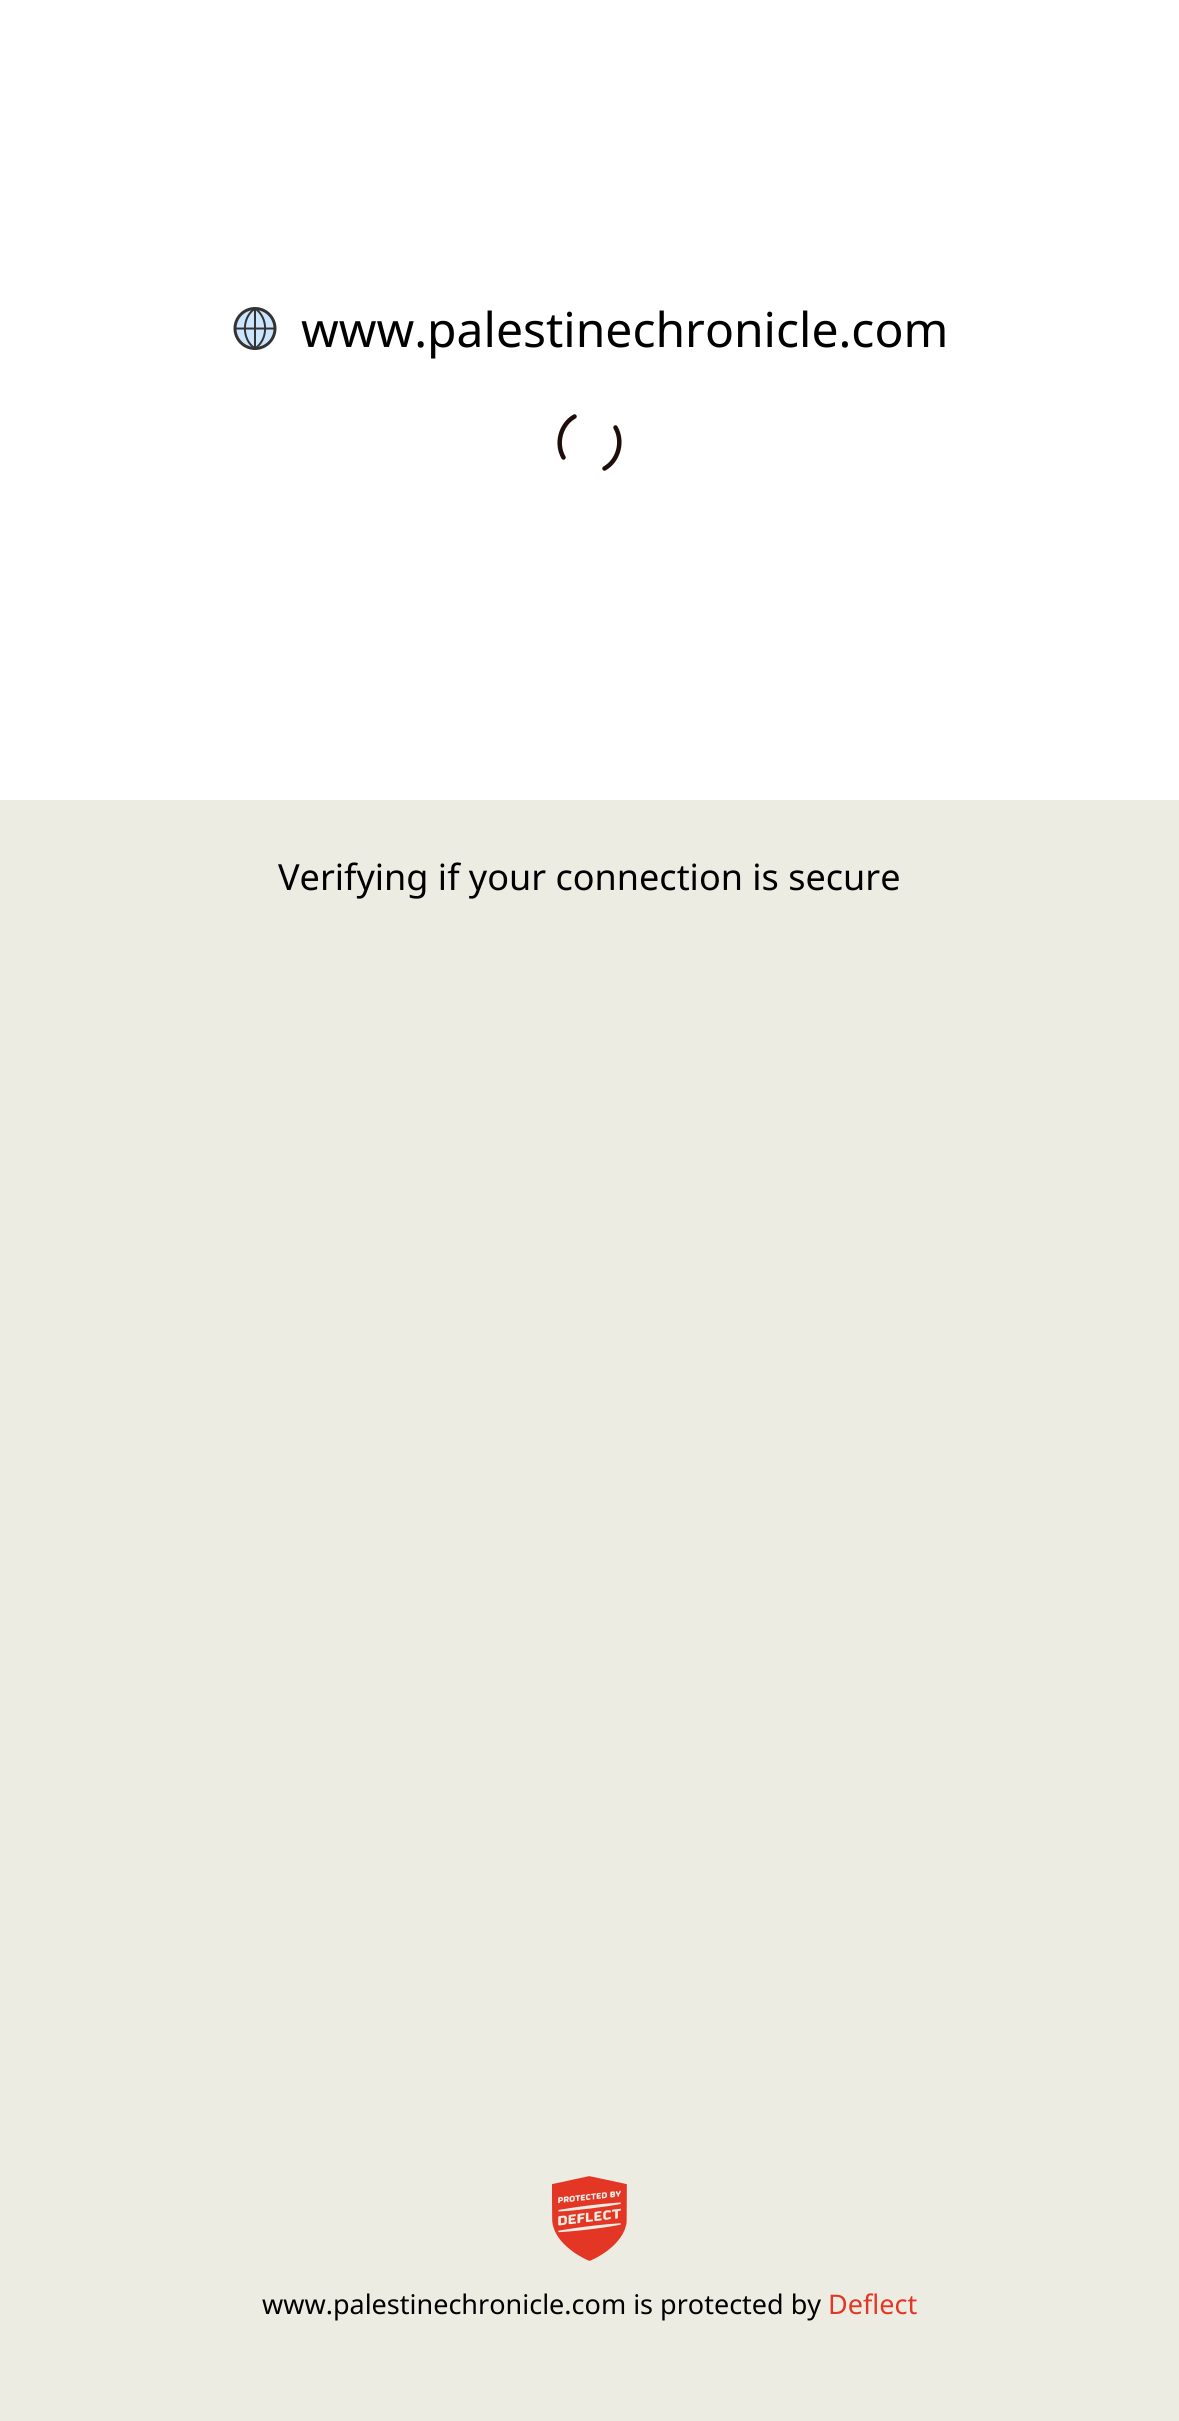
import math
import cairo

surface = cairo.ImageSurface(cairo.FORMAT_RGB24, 1179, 2421)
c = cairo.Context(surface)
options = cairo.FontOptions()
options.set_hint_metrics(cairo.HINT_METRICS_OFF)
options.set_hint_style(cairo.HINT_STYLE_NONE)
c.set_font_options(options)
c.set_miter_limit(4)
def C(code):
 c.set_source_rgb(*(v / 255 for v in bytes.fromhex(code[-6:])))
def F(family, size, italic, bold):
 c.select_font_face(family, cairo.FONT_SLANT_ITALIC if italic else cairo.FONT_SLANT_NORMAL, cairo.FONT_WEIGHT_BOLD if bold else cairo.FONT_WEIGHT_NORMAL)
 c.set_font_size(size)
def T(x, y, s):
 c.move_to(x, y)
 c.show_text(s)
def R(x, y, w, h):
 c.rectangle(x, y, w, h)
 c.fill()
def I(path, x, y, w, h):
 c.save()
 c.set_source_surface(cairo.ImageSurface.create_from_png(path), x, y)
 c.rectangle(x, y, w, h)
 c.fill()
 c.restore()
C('ffffff')
c.paint()
C('cce5ff')
c.arc(255,328.5,20,0,2 * math.pi)
c.fill_preserve()
C('333333')
c.set_line_width(3)
c.stroke()
c.new_path()
c.move_to(255,308.5)
c.curve_to(268.5,317.5,268.5,339.5,255,348.5)
c.curve_to(241.5,339.5,241.5,317.5,255,308.5)
c.close_path()
c.set_line_width(2)
c.stroke()
c.new_path()
c.move_to(235,328.5)
c.line_to(275,328.5)
c.move_to(255,308.5)
c.line_to(255,348.5)
c.set_line_cap(cairo.LINE_CAP_ROUND)
c.stroke()
F('Noto Sans',48,0,0)
C('000000')
T(301,347,'www.palestinechronicle.com')
c.new_path()
c.move_to(615.5,427.5)
c.curve_to(623.5,441.5,618.5,460.5,604.5,468.5)
c.move_to(563.5,457.5)
c.curve_to(555.5,443.5,560.5,424.5,574.5,416.5)
C('1d0e0b')
c.set_line_width(4.5)
c.stroke()
C('ecece2')
R(0,800,1179,1621)
F('Noto Sans',36,0,0)
C('000000')
T(278,890,'Verifying if your connection is secure')
I('1.png',552,2176,75,85)
F('Noto Sans',27,0,0)
T(262,2314,'www.palestinechronicle.com is protected by')
C('e33624')
T(828,2314,'Deflect')
surface.write_to_png('o.png')
